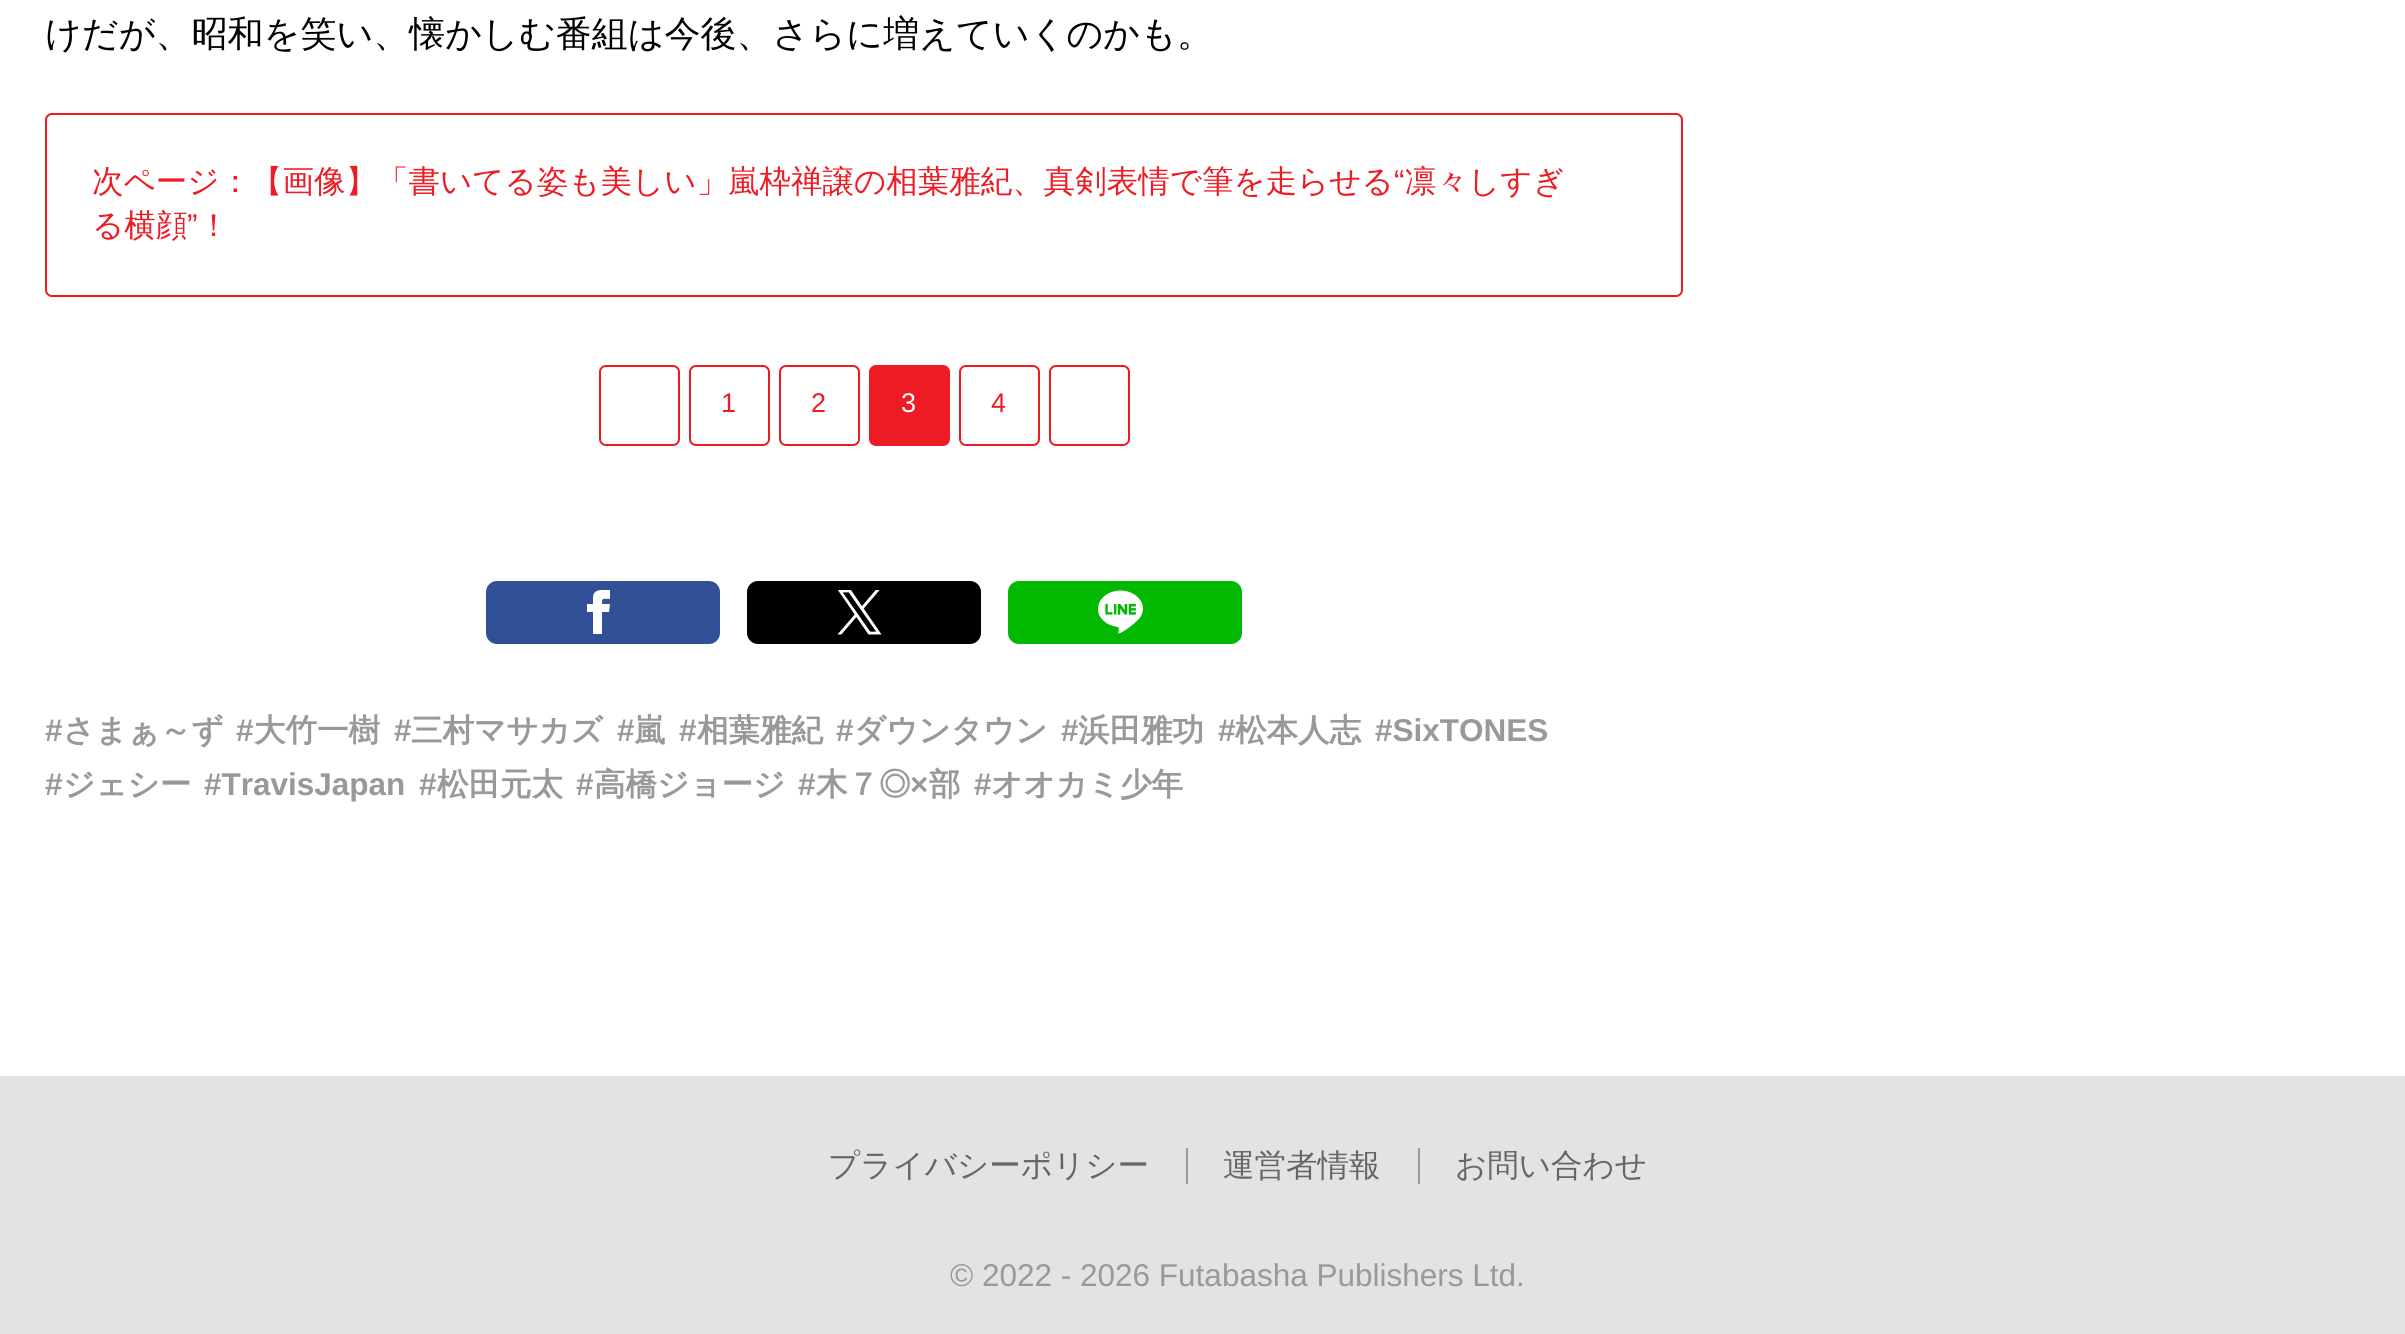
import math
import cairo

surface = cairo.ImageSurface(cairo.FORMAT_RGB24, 2405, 1334)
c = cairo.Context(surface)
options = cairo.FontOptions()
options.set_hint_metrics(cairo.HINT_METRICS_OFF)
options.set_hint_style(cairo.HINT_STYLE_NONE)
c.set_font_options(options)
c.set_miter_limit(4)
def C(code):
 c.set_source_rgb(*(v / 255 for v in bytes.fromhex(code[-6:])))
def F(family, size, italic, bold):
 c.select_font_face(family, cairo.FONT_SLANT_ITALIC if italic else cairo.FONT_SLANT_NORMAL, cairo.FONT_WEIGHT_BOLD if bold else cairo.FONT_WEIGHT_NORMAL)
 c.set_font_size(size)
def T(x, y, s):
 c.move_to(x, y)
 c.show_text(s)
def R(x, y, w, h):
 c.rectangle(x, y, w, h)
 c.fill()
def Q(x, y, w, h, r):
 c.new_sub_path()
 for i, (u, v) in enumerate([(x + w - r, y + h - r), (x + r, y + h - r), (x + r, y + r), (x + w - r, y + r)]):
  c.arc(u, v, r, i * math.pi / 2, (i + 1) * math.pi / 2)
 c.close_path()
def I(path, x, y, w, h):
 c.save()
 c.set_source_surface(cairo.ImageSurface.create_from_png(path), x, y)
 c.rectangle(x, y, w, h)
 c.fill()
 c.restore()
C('ffffff')
c.paint()
F('WenQuanYi Zen Hei Medium',36,0,0)
C('000000')
T(45,46,'けだが、昭和を笑い、懐かしむ番組は今後、さらに増えていくのかも。')
Q(46,114,1636,182,6)
C('ed1c24')
c.stroke()
F('WenQuanYi Zen Hei Medium',31.5,0,0)
T(92,192,'次ページ：【画像】「書いてる姿も美しい」嵐枠禅譲の相葉雅紀、真剣表情で筆を走らせる')
F('Liberation Sans',31.5,0,0)
T(1394,192,'“')
F('WenQuanYi Zen Hei Medium',31.5,0,0)
T(1405,192,'凛々しすぎ')
T(92,236,'る横顔')
F('Liberation Sans',31.5,0,0)
T(187,236,'”')
F('WenQuanYi Zen Hei Medium',31.5,0,0)
T(198,236,'！')
Q(600,366,79,79,6)
c.stroke()
Q(690,366,79,79,6)
c.stroke()
F('Liberation Sans',27,0,0)
T(721,412,'1')
Q(780,366,79,79,6)
c.stroke()
T(811,412,'2')
Q(870,366,79,79,6)
c.fill_preserve()
c.stroke()
C('ffffff')
T(901,412,'3')
Q(960,366,79,79,6)
C('ed1c24')
c.stroke()
T(991,412,'4')
Q(1050,366,79,79,6)
c.stroke()
C('315096')
Q(486,581,234,63,11)
c.fill()
c.save()
c.rectangle(587,590,23,45)
c.clip()
C('ffffff')
c.new_path()
c.move_to(593,604)
c.line_to(587,604)
c.line_to(587,612)
c.line_to(593,612)
c.line_to(593,634)
c.line_to(602,634)
c.line_to(602,612)
c.line_to(609,612)
c.line_to(610,604)
c.line_to(602,604)
c.curve_to(602,597,603,599,610,599)
c.line_to(610,590)
c.curve_to(603,590,593,588,593,598)
c.close_path()
c.fill()
c.restore()
C('000000')
Q(747,581,234,63,11)
c.fill()
I('1.png',837,590,45,45)
C('00b900')
Q(1008,581,234,63,11)
c.fill()
I('2.png',1098,590,45,44)
F('Liberation Sans',31.5,0,1)
C('999999')
T(45,741,'#')
F('WenQuanYi Zen Hei',31.5,0,1)
T(63,741,'さまぁ～ず')
F('Liberation Sans',31.5,0,1)
T(236,741,'#')
F('WenQuanYi Zen Hei',31.5,0,1)
T(254,741,'大竹一樹')
F('Liberation Sans',31.5,0,1)
T(394,741,'#')
F('WenQuanYi Zen Hei',31.5,0,1)
T(411,741,'三村マサカズ')
F('Liberation Sans',31.5,0,1)
T(617,741,'#')
F('WenQuanYi Zen Hei',31.5,0,1)
T(634,741,'嵐')
F('Liberation Sans',31.5,0,1)
T(679,741,'#')
F('WenQuanYi Zen Hei',31.5,0,1)
T(697,741,'相葉雅紀')
F('Liberation Sans',31.5,0,1)
T(836,741,'#')
F('WenQuanYi Zen Hei',31.5,0,1)
T(854,741,'ダウンタウン')
F('Liberation Sans',31.5,0,1)
T(1061,741,'#')
F('WenQuanYi Zen Hei',31.5,0,1)
T(1078,741,'浜田雅功')
F('Liberation Sans',31.5,0,1)
T(1218,741,'#')
F('WenQuanYi Zen Hei',31.5,0,1)
T(1235,741,'松本人志')
F('Liberation Sans',31.5,0,1)
T(1375,741,'#SixTONES')
T(45,795,'#')
F('WenQuanYi Zen Hei',31.5,0,1)
T(63,795,'ジェシー')
F('Liberation Sans',31.5,0,1)
T(204,795,'#TravisJapan')
T(419,795,'#')
F('WenQuanYi Zen Hei',31.5,0,1)
T(437,795,'松田元太')
F('Liberation Sans',31.5,0,1)
T(576,795,'#')
F('WenQuanYi Zen Hei',31.5,0,1)
T(594,795,'高橋ジョージ')
F('Liberation Sans',31.5,0,1)
T(798,795,'#')
F('WenQuanYi Zen Hei',31.5,0,1)
T(816,795,'木７◎')
F('Liberation Sans',31.5,0,1)
T(910,795,'×')
F('WenQuanYi Zen Hei',31.5,0,1)
T(929,795,'部')
F('Liberation Sans',31.5,0,1)
T(974,795,'#')
F('WenQuanYi Zen Hei',31.5,0,1)
T(991,795,'オオカミ少年')
C('e3e3e3')
R(0,1076,2405,258)
C('999999')
R(1186,1148,2,36)
F('WenQuanYi Zen Hei Medium',31.5,0,0)
C('666666')
T(828,1176,'プライバシーポリシー')
C('999999')
R(1418,1148,2,36)
C('666666')
T(1223,1176,'運営者情報')
T(1455,1176,'お問い合わせ')
F('Liberation Sans',31.5,0,0)
C('999999')
T(950,1286,'© 2022 - 2026 Futabasha Publishers Ltd.')
surface.write_to_png('o.png')
